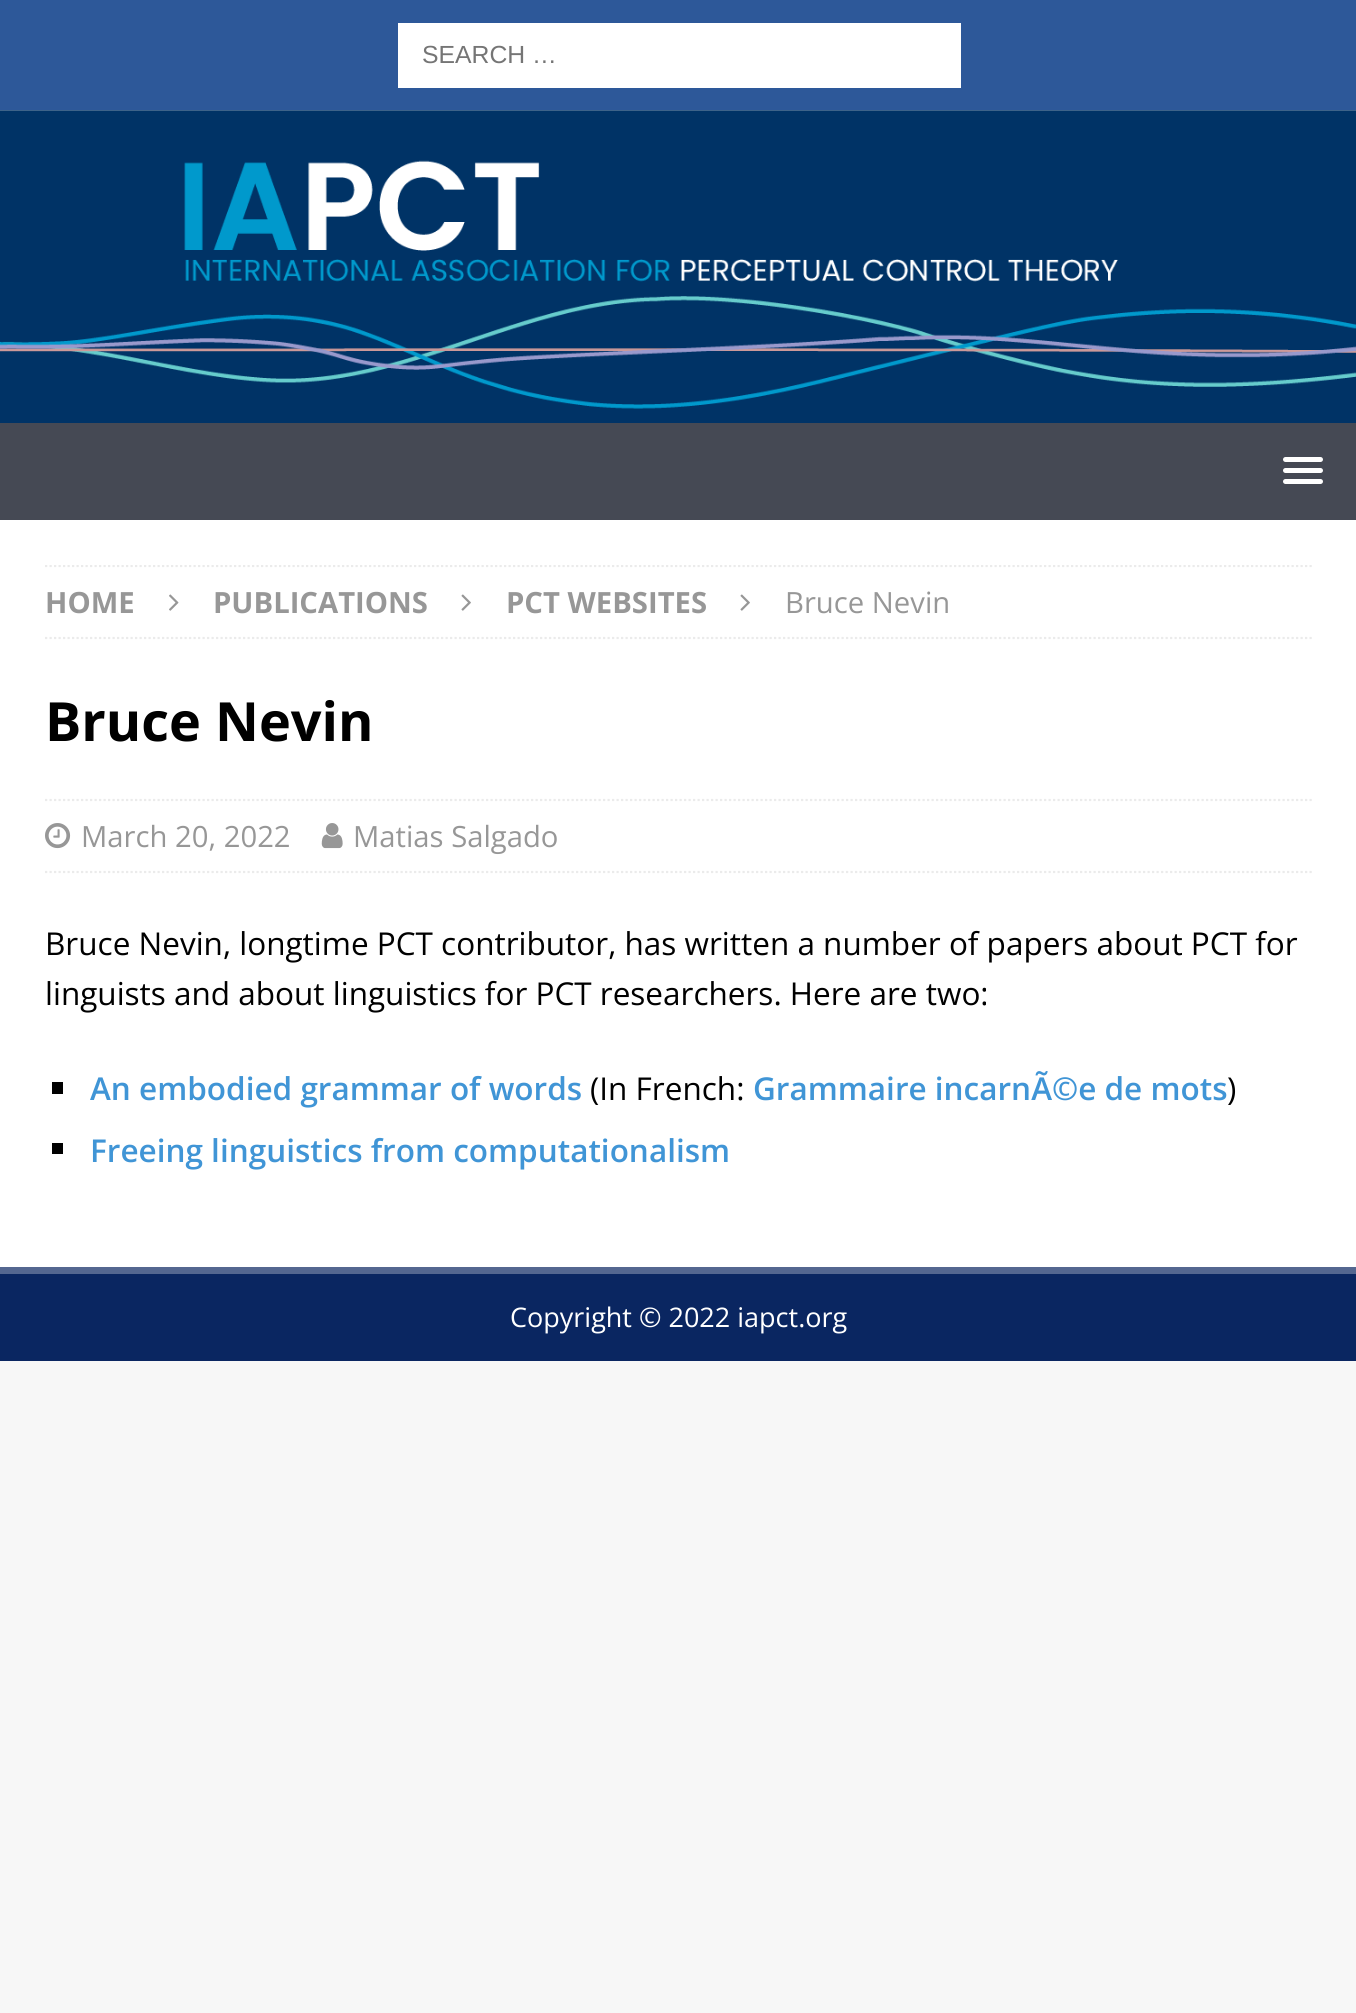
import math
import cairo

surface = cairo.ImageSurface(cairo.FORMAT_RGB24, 1356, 2013)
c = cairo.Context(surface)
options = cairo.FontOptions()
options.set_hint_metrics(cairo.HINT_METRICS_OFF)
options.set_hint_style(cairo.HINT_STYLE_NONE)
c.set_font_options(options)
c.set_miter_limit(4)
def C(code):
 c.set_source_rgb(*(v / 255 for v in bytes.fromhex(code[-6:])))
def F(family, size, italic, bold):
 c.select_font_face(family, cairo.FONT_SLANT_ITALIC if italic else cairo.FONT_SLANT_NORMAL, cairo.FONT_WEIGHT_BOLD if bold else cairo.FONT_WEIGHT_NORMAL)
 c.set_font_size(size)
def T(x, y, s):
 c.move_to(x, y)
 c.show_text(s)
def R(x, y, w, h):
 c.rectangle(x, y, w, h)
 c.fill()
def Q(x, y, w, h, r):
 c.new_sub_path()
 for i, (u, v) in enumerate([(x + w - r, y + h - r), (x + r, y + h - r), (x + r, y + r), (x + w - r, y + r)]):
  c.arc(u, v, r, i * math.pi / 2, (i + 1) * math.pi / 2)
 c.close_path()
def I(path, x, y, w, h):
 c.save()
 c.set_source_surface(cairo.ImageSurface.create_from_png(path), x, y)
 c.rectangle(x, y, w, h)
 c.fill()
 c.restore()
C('f7f7f7')
c.paint()
C('2d5899')
R(0,0,1356,110)
C('ffffff')
R(398,23,563,65)
F('Liberation Sans',24.75,0,0)
C('757575')
T(422,63,'SEARCH …')
I('1.png',0,110,1356,313)
C('454954')
R(0,423,1356,97)
C('ffffff')
Q(1283,457,40,5,2.5)
c.fill()
Q(1283,468,40,5,2.5)
c.fill()
Q(1283,479,40,5,2.5)
c.fill()
R(0,520,1356,747)
c.save()
c.rectangle(45,565,1267,657)
c.clip()
c.new_path()
c.move_to(45,566)
c.line_to(1312,566)
C('ebebeb')
c.set_line_width(2.2)
c.set_dash([2.25,2.25])
c.stroke()
c.restore()
c.new_path()
c.move_to(45,638)
c.line_to(1312,638)
C('ebebeb')
c.set_line_width(2.2)
c.set_dash([2.25,2.25])
c.stroke()
F('Open Sans',29.25,0,1)
C('979797')
T(45,613,'HOME')
I('2.png',169,594,10,17)
T(213,613,'PUBLICATIONS')
I('3.png',461,594,10,17)
T(506,613,'PCT WEBSITES')
I('3.png',740,594,10,17)
F('Open Sans',29.25,0,0)
T(785,613,'Bruce Nevin')
F('Open Sans',54,0,1)
C('000000')
T(45,741,'Bruce Nevin')
c.new_path()
c.move_to(45,800)
c.line_to(1312,800)
C('ebebeb')
c.stroke()
c.new_path()
c.move_to(45,872)
c.line_to(1312,872)
c.stroke()
I('4.png',45,823,26,26)
F('Open Sans',29.25,0,0)
C('979797')
T(81,847,'March 20, 2022')
I('5.png',321,823,22,26)
T(353,847,'Matias Salgado')
F('Open Sans',31.5,0,0)
C('000000')
T(45,955,'Bruce Nevin, longtime PCT contributor, has written a number of papers about PCT for')
T(45,1005,'linguists and about linguistics for PCT researchers. Here are two:')
R(52,1082,11,12)
F('Open Sans SemiBold',31.5,0,0)
C('4095d6')
T(90,1100,'An embodied grammar of words')
F('Open Sans',31.5,0,0)
C('000000')
T(590,1100,'(In French:')
F('Open Sans SemiBold',31.5,0,0)
C('4095d6')
T(753,1100,'Grammaire incarnÃ©e de mots')
F('Open Sans',31.5,0,0)
C('000000')
T(1227,1100,')')
R(52,1143,11,11)
F('Open Sans SemiBold',31.5,0,0)
C('4095d6')
T(90,1162,'Freeing linguistics from computationalism')
C('0a2661')
R(0,1274,1356,87)
C('546790')
R(0,1267,1356,7)
F('Open Sans',27,0,0)
C('ffffff')
T(510,1327,'Copyright © 2022 iapct.org')
surface.write_to_png('o.png')
